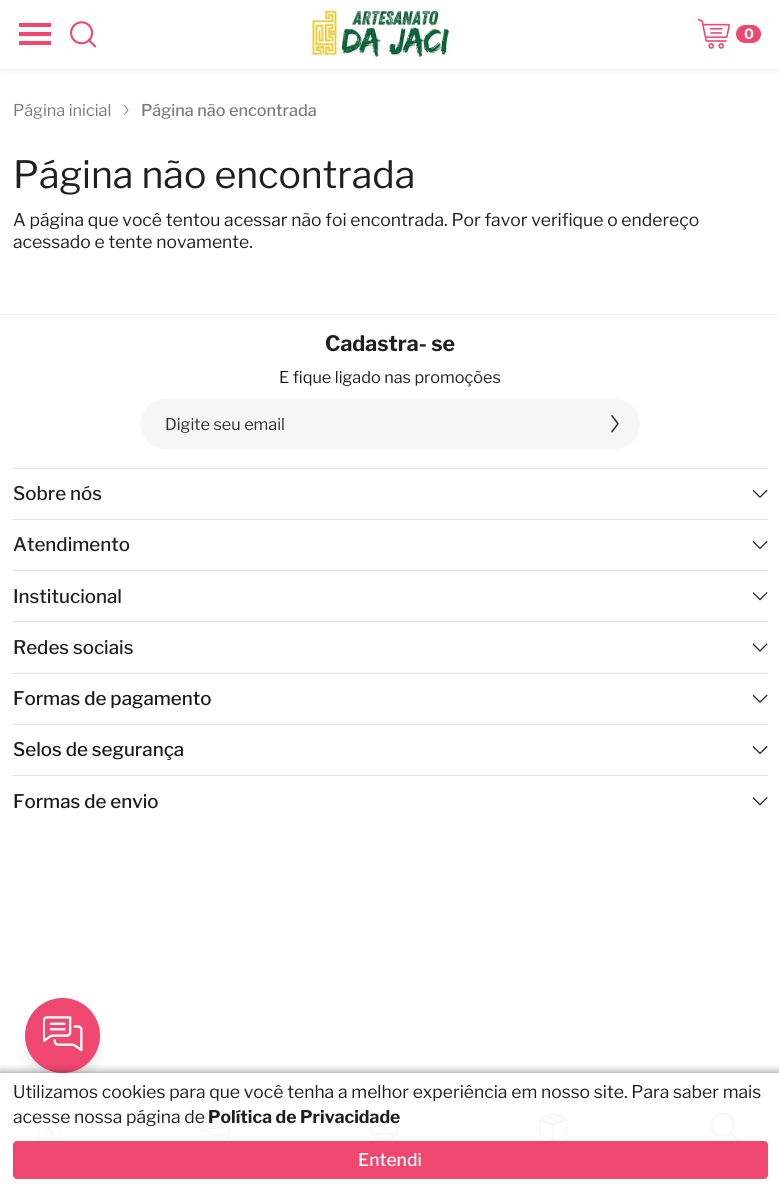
import math
import cairo

surface = cairo.ImageSurface(cairo.FORMAT_RGB24, 779, 1184)
c = cairo.Context(surface)
options = cairo.FontOptions()
options.set_hint_metrics(cairo.HINT_METRICS_OFF)
options.set_hint_style(cairo.HINT_STYLE_NONE)
c.set_font_options(options)
c.set_miter_limit(4)
def C(code):
 c.set_source_rgb(*(v / 255 for v in bytes.fromhex(code[-6:])))
def F(family, size, italic, bold):
 c.select_font_face(family, cairo.FONT_SLANT_ITALIC if italic else cairo.FONT_SLANT_NORMAL, cairo.FONT_WEIGHT_BOLD if bold else cairo.FONT_WEIGHT_NORMAL)
 c.set_font_size(size)
def T(x, y, s):
 c.move_to(x, y)
 c.show_text(s)
def R(x, y, w, h):
 c.rectangle(x, y, w, h)
 c.fill()
def Q(x, y, w, h, r):
 c.new_sub_path()
 for i, (u, v) in enumerate([(x + w - r, y + h - r), (x + r, y + h - r), (x + r, y + r), (x + w - r, y + r)]):
  c.arc(u, v, r, i * math.pi / 2, (i + 1) * math.pi / 2)
 c.close_path()
def S(x, y, w, h, r, blur, alpha):
 c.push_group_with_content(cairo.CONTENT_ALPHA)
 c.set_operator(cairo.OPERATOR_SOURCE)
 for i in range(15, -16, -2):
  e = blur * i / 6
  if min(w, h) + 2 * e > 0:
   c.set_source_rgba(0, 0, 0, alpha * math.erfc((i - 1) / 8.5) / 2)
   Q(x - e, y - e, w + 2 * e, h + 2 * e, max(0, min(r + e + blur * .6, min(w, h) / 2 + e)))
   c.fill()
 c.mask(c.pop_group())
def I(path, x, y, w, h):
 c.save()
 c.set_source_surface(cairo.ImageSurface.create_from_png(path), x, y)
 c.rectangle(x, y, w, h)
 c.fill()
 c.restore()
C('ffffff')
c.paint()
C('525252')
S(0,1,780,69,0,2.5,.13)
C('ffffff')
R(0,0,779,68)
C('fcfcfc')
R(0,68,779,1)
C('ef476f')
R(19,41,32,4)
R(19,32,32,4)
R(19,23,32,4)
I('1.png',70,21,26,27)
I('2.png',311,10,140,48)
I('3.png',698,18,32,31)
Q(736,25,25,18,9)
c.fill()
F('Libre Franklin',14,0,1)
C('ffffff')
T(744,39,'0')
F('Libre Franklin',16.25,0,0)
C('7b7b7b')
T(13,116,'Página inicial')
I('4.png',124,105,5,10)
F('Libre Franklin Medium',16.25,0,0)
T(141,116,'Página não encontrada')
F('Libre Franklin',37.5,0,0)
C('201f1f')
T(13,188,'Página não encontrada')
F('Libre Franklin',17.5,0,0)
T(13,226,'A página que você tentou acessar não foi encontrada. Por favor verifique o endereço')
T(13,248,'acessado e tente novamente.')
C('efefef')
R(0,314,779,1)
F('Libre Franklin',21.25,0,1)
C('201f1f')
T(325,351,'Cadastra- se')
F('Libre Franklin',16.25,0,0)
T(279,383,'E fique ligado nas promoções')
C('f6f6f6')
Q(140,399,500,50,25)
c.fill()
C('323232')
T(165,430,'Digite seu email')
I('5.png',611,415,8,18)
C('e2e2e2')
R(13,468,755,1)
F('Libre Franklin Medium',18.75,0,0)
C('201f1f')
T(13,500,'Sobre nós')
I('6.png',753,489,15,9)
C('e2e2e2')
R(13,519,755,1)
C('201f1f')
T(13,551,'Atendimento')
I('7.png',753,541,15,8)
C('e2e2e2')
R(13,570,755,1)
C('201f1f')
T(13,603,'Institucional')
I('8.png',753,592,15,9)
C('e2e2e2')
R(13,621,755,1)
C('201f1f')
T(13,654,'Redes sociais')
I('9.png',753,643,15,9)
C('e2e2e2')
R(13,673,755,1)
C('181818')
T(13,705,'Formas de pagamento')
I('10.png',753,694,15,9)
C('e2e2e2')
R(13,724,755,1)
C('181818')
T(13,756,'Selos de segurança')
I('11.png',753,746,15,8)
C('e2e2e2')
R(13,775,755,1)
C('181818')
T(13,808,'Formas de envio')
I('12.png',753,797,15,9)
C('676767')
S(25,1010,75,75,37.5,5,.1)
C('000000')
S(25,1000,75,75,37.5,.5,.04)
C('ef476f')
c.arc(62.5,1035.5,37.5,0,2 * math.pi)
c.fill()
I('13.png',43,1016,40,36)
C('525252')
S(0,1096,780,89,0,2.5,.08)
C('ffffff')
R(0,1097,779,87)
C('e2e2e2')
R(0,1096,779,1)
I('14.png',35,1114,29,26)
I('15.png',201,1114,29,26)
I('16.png',370,1113,29,28)
I('17.png',539,1113,29,28)
I('18.png',710,1113,29,28)
c.save()
c.rectangle(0,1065,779,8)
c.clip()
C('000000')
S(0,1073,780,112,0,4.5,.5)
c.restore()
c.set_source_rgba(1,1,1,0.95)
R(0,1073,779,68)
F('Libre Franklin',17.5,0,0)
C('201f1f')
T(13,1098,'Utilizamos cookies para que você tenha a melhor experiência em nosso site. Para saber mais')
T(13,1123,'acesse nossa página de')
F('Libre Franklin',17.5,0,1)
T(208,1123,'Política de Privacidade')
C('ef476f')
Q(13,1141,755,38,4)
c.fill()
F('Libre Franklin Medium',17.5,0,0)
C('ffffff')
T(358,1166,'Entendi')
surface.write_to_png('o.png')
